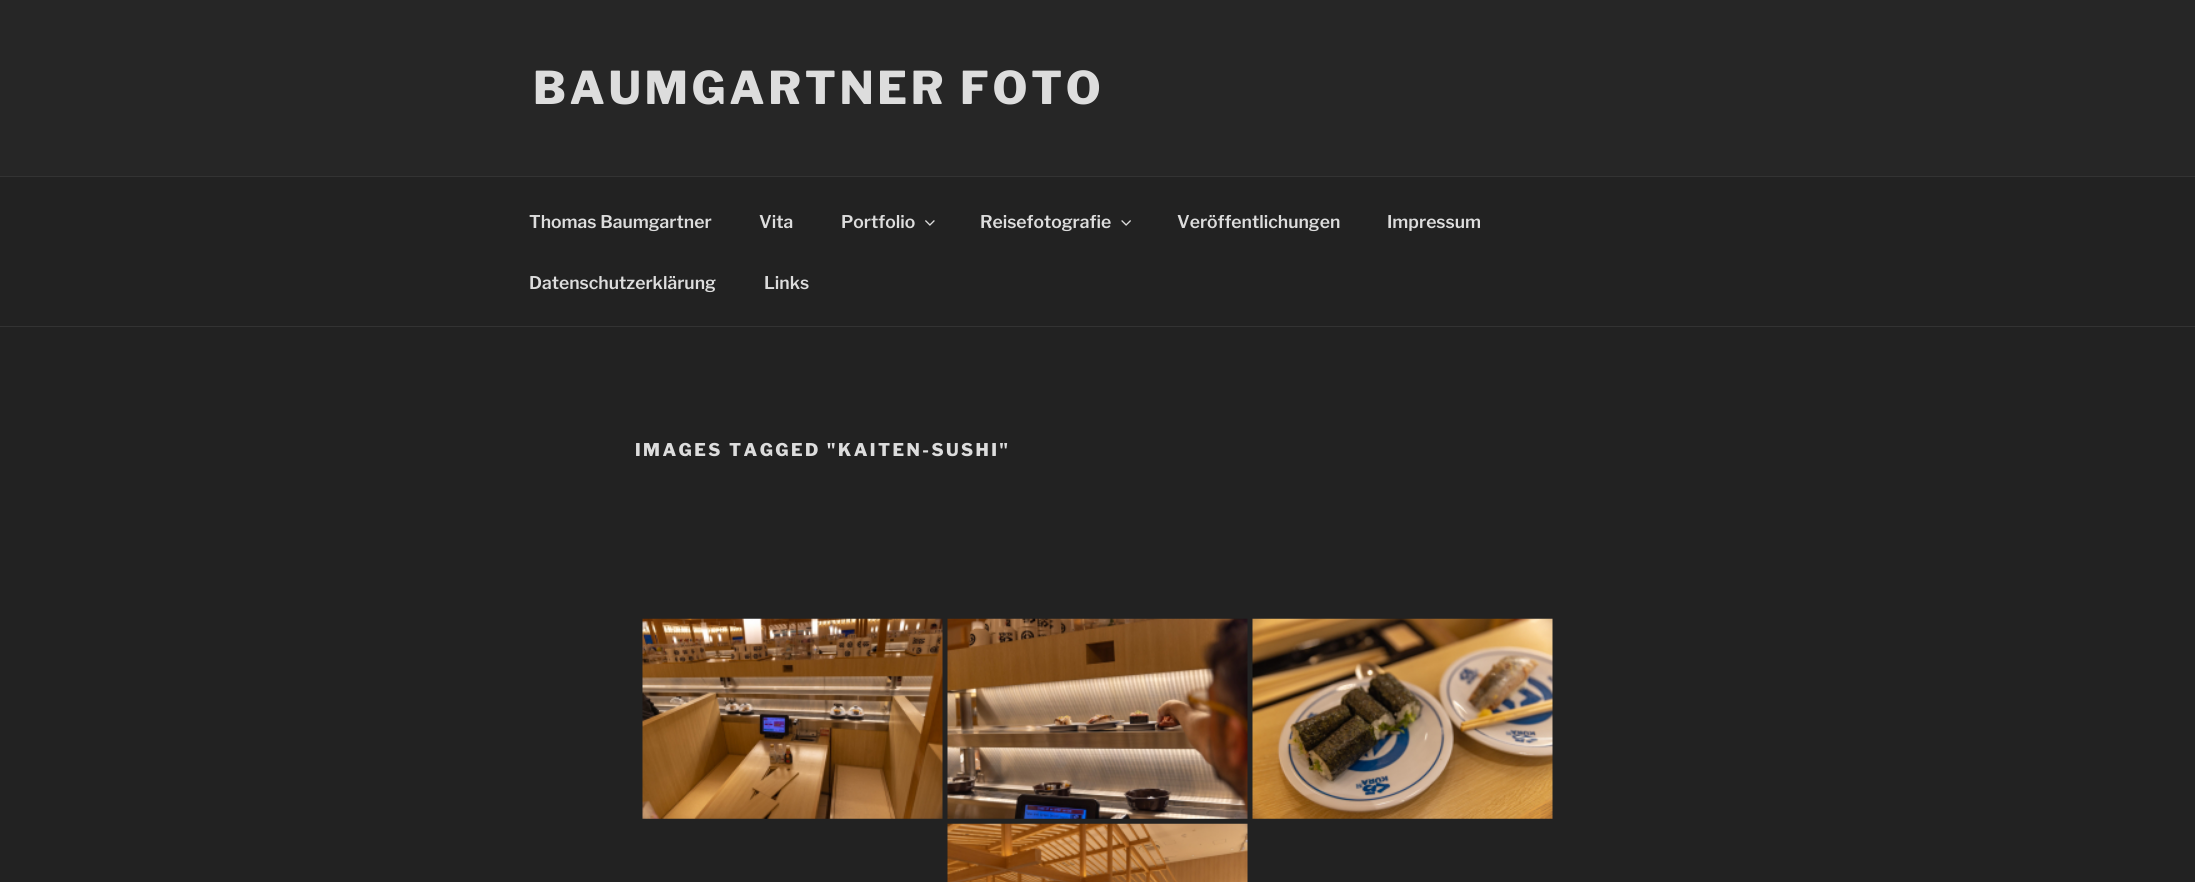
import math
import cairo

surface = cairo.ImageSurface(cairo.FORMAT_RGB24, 2195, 882)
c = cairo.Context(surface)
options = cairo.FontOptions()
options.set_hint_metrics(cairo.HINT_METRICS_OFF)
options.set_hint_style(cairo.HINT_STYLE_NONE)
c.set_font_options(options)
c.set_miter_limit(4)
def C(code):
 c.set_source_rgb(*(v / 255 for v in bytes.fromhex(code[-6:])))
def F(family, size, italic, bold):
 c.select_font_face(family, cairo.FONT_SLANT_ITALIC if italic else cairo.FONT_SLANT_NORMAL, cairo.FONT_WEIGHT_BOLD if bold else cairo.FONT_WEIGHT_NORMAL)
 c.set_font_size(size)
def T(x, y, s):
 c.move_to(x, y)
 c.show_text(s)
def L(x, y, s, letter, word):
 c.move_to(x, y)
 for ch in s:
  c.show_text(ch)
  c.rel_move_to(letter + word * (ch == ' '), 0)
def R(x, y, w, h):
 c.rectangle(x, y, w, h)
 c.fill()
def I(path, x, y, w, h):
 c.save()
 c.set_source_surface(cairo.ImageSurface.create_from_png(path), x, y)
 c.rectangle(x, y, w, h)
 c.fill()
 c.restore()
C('222222')
c.paint()
C('262626')
R(0,0,2195,176)
F('Libre Franklin ExtraBold',45,0,0)
C('dddddd')
L(533,104,'BAUMGARTNER FOTO',3.6,0)
C('333333')
R(0,176,2195,1)
R(0,326,2195,1)
F('Libre Franklin SemiBold',17.5,0,0)
C('dddddd')
T(529,228,'Thomas Baumgartner')
T(759,228,'Vita')
T(841,228,'Portfolio')
I('1.png',925,220,10,6)
T(980,228,'Reisefotografie')
I('2.png',1121,220,10,6)
T(1177,228,'Veröffentlichungen')
T(1387,228,'Impressum')
T(529,289,'Datenschutzerklärung')
T(764,289,'Links')
F('Libre Franklin ExtraBold',17.5,0,0)
L(635,456,'IMAGES TAGGED "KAITEN-SUSHI"',2.45,0)
I('3.png',642,618,301,201)
I('4.png',947,618,301,201)
I('5.png',1252,618,301,201)
I('6.png',947,823,301,59)
surface.write_to_png('o.png')
